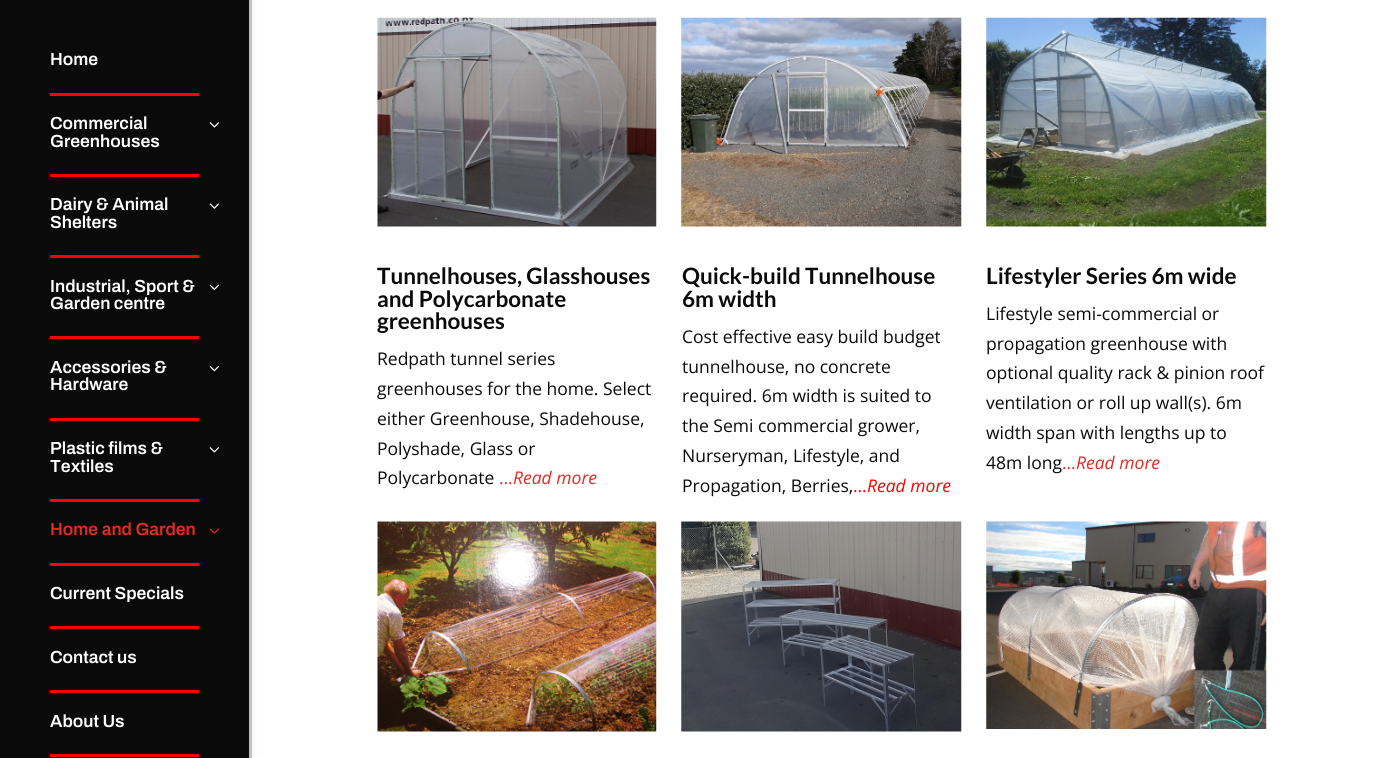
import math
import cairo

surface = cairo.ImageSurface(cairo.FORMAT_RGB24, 1392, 758)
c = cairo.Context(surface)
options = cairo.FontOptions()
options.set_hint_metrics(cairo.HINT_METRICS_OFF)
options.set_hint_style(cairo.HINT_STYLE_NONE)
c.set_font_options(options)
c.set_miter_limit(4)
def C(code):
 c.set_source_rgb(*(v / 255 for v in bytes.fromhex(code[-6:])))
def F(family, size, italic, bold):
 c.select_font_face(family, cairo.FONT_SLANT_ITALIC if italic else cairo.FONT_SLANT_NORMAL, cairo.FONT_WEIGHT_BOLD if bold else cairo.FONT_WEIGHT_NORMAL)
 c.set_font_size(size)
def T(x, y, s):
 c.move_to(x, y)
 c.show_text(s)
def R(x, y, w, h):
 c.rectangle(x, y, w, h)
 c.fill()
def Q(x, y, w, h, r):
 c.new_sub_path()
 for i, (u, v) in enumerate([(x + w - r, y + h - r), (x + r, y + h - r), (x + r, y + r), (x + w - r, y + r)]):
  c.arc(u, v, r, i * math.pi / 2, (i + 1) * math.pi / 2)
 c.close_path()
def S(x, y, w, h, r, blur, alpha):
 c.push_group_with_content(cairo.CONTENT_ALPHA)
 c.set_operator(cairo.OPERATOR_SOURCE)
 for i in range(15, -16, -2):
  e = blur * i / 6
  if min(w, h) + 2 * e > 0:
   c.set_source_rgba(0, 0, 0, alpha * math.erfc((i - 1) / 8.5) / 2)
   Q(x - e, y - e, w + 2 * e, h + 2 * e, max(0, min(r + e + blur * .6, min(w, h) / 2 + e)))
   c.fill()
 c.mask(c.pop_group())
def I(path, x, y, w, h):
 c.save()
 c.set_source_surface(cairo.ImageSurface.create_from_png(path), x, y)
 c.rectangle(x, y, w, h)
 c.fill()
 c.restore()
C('ffffff')
c.paint()
C('000000')
S(0,-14,251,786,0,4.5,.1)
C('0a0a0a')
R(0,0,249,758)
C('c0c0c0')
R(249,0,3,758)
C('ff0000')
R(50,93,149,3)
F('Archivo SemiBold',17.5,0,0)
C('ffffff')
T(50,65,'Home')
C('ff0000')
R(50,174,149,3)
C('ffffff')
T(50,129,'Commercial')
I('1.png',209,122,10,6)
T(50,147,'Greenhouses')
C('ff0000')
R(50,255,149,3)
C('ffffff')
T(50,210,'Dairy & Animal')
I('2.png',209,203,10,6)
T(50,228,'Shelters')
C('ff0000')
R(50,336,149,3)
C('ffffff')
T(50,292,'Industrial, Sport &')
I('3.png',209,284,10,6)
T(50,309,'Garden centre')
C('ff0000')
R(50,418,149,3)
C('ffffff')
T(50,373,'Accessories &')
I('4.png',209,366,10,6)
T(50,390,'Hardware')
C('ff0000')
R(50,499,149,3)
C('ffffff')
T(50,454,'Plastic films &')
I('1.png',209,447,10,6)
T(50,472,'Textiles')
C('ff0000')
R(50,563,149,3)
C('e02b20')
T(50,535,'Home and Garden')
I('5.png',209,528,10,6)
C('ff0000')
R(50,626,149,3)
C('ffffff')
T(50,599,'Current Specials')
C('ff0000')
R(50,690,149,3)
C('ffffff')
T(50,663,'Contact us')
C('ff0000')
R(50,754,149,3)
C('ffffff')
T(50,727,'About Us')
I('6.png',377,17,280,210)
F('Lato',22.5,0,1)
C('0a0a0a')
T(377,284,'Tunnelhouses, Glasshouses')
T(377,307,'and Polycarbonate')
T(377,329,'greenhouses')
F('Open Sans',17.5,0,0)
T(377,365,'Redpath tunnel series')
T(377,395,'greenhouses for the home. Select')
T(377,425,'either Greenhouse, Shadehouse,')
T(377,455,'Polyshade, Glass or')
T(377,484,'Polycarbonate')
C('e02b20')
T(499,484,'…')
F('Open Sans',17.5,1,0)
T(513,484,'Read more')
I('7.png',681,17,281,210)
F('Lato',22.5,0,1)
C('0a0a0a')
T(682,284,'Quick-build Tunnelhouse')
T(682,307,'6m width')
F('Open Sans',17.5,0,0)
T(682,343,'Cost effective easy build budget')
T(682,373,'tunnelhouse, no concrete')
T(682,402,'required. 6m width is suited to')
T(682,432,'the Semi commercial grower,')
T(682,462,'Nurseryman, Lifestyle, and')
T(682,492,'Propagation, Berries,')
C('ff0000')
T(853,492,'…')
F('Open Sans',17.5,1,0)
T(867,492,'Read more')
I('8.png',986,17,281,210)
F('Lato',22.5,0,1)
C('0a0a0a')
T(986,284,'Lifestyler Series 6m wide')
F('Open Sans',17.5,0,0)
T(986,320,'Lifestyle semi-commercial or')
T(986,350,'propagation greenhouse with')
T(986,379,'optional quality rack & pinion roof')
T(986,409,'ventilation or roll up wall(s). 6m')
T(986,439,'width span with lengths up to')
T(986,469,'48m long')
C('e02b20')
T(1062,469,'…')
F('Open Sans',17.5,1,0)
T(1076,469,'Read more')
I('9.png',377,521,280,211)
I('10.png',681,521,281,211)
I('11.png',986,521,281,208)
surface.write_to_png('o.png')
